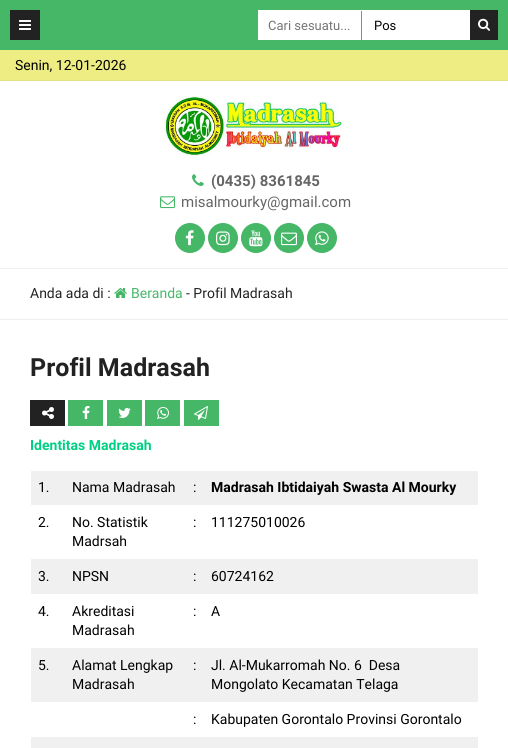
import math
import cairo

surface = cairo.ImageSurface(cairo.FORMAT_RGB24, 508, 748)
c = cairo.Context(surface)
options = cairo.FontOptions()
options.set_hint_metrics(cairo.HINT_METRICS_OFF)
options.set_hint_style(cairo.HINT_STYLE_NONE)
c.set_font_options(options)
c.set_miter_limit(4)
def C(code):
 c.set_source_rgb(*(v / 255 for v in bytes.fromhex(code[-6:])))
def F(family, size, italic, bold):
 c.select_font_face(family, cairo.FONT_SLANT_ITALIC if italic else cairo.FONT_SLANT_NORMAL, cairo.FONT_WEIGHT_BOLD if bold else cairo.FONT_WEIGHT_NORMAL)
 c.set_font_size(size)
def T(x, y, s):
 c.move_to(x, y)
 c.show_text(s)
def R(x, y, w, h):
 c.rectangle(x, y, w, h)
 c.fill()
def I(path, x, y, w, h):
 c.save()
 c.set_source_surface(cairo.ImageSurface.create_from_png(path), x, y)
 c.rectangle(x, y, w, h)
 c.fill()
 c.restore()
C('ffffff')
c.paint()
C('45b767')
R(0,0,508,50)
C('222222')
R(10,10,30,30)
I('1.png',19,20,12,10)
C('ffffff')
R(258,10,212,30)
C('45b767')
R(361,11,1,30)
F('Roboto',13,0,0)
C('757575')
T(268,30,'Cari sesuatu...')
C('000000')
T(374,30,'Pos')
C('222222')
R(470,10,28,30)
I('2.png',478,18,12,13)
C('eded84')
R(0,50,508,30)
C('e2e283')
R(0,80,508,1)
F('Roboto',14,0,0)
C('000000')
T(15,70,'Senin, 12-01-2026')
I('3.png',164,96,178,60)
I('4.png',192,174,12,12)
F('Roboto',15,0,1)
C('666666')
T(211,186,'(0435) 8361845')
I('5.png',160,196,15,13)
F('Roboto',15,0,0)
T(181,207,'misalmourky@gmail.com')
C('45b767')
c.new_path()
c.arc(190,238,15,0,2 * math.pi)
c.fill()
I('6.png',185,230,9,16)
c.arc(223,238,15,0,2 * math.pi)
c.fill()
I('7.png',216,231,14,15)
c.arc(256,238,15,0,2 * math.pi)
c.fill()
I('8.png',249,230,14,17)
c.arc(289,238,15,0,2 * math.pi)
c.fill()
I('9.png',281,232,16,14)
c.arc(322,238,15,0,2 * math.pi)
c.fill()
I('10.png',315,231,14,15)
C('f2f2f2')
R(0,268,508,1)
F('Roboto',14,0,0)
C('222222')
T(30,298,'Anda ada di :')
I('11.png',114,288,13,10)
C('45b767')
T(131,298,'Beranda')
C('222222')
T(186,298,'- Profil Madrasah')
C('eeeeee')
R(0,319,508,1)
F('Roboto',25,0,1)
C('222222')
T(30,376,'Profil Madrasah')
R(30,400,35,26)
I('12.png',42,407,12,12)
C('45b767')
R(68,400,35,26)
I('13.png',82,406,8,13)
R(107,400,35,26)
I('14.png',118,408,13,10)
R(145,400,35,26)
I('15.png',157,407,12,12)
R(184,400,35,26)
I('16.png',194,406,14,14)
F('Roboto',14,0,1)
C('00d084')
T(30,450,'Identitas Madrasah')
C('f0f0f0')
R(31,471,447,34)
F('Roboto',14,0,0)
C('000000')
T(38,492,'1.')
T(72,492,'Nama Madrasah')
T(193,492,':')
F('Roboto',14,0,1)
T(211,492,'Madrasah Ibtidaiyah Swasta Al Mourky')
F('Roboto',14,0,0)
T(38,527,'2.')
T(72,527,'No. Statistik')
T(72,546,'Madrsah')
T(193,527,':')
T(211,527,'111275010026')
C('f0f0f0')
R(31,559,447,35)
C('000000')
T(38,581,'3.')
T(72,581,'NPSN')
T(193,581,':')
T(211,581,'60724162')
T(38,616,'4.')
T(72,616,'Akreditasi')
T(72,635,'Madrasah')
T(193,616,':')
T(211,616,'A')
C('f0f0f0')
R(31,648,447,54)
C('000000')
T(38,670,'5.')
T(72,670,'Alamat Lengkap')
T(72,689,'Madrasah')
T(193,670,':')
T(211,670,'Jl. Al-Mukarromah No. 6  Desa')
T(211,689,'Mongolato Kecamatan Telaga')
T(193,724,':')
T(211,724,'Kabupaten Gorontalo Provinsi Gorontalo')
C('f0f0f0')
R(31,737,447,11)
surface.write_to_png('o.png')
